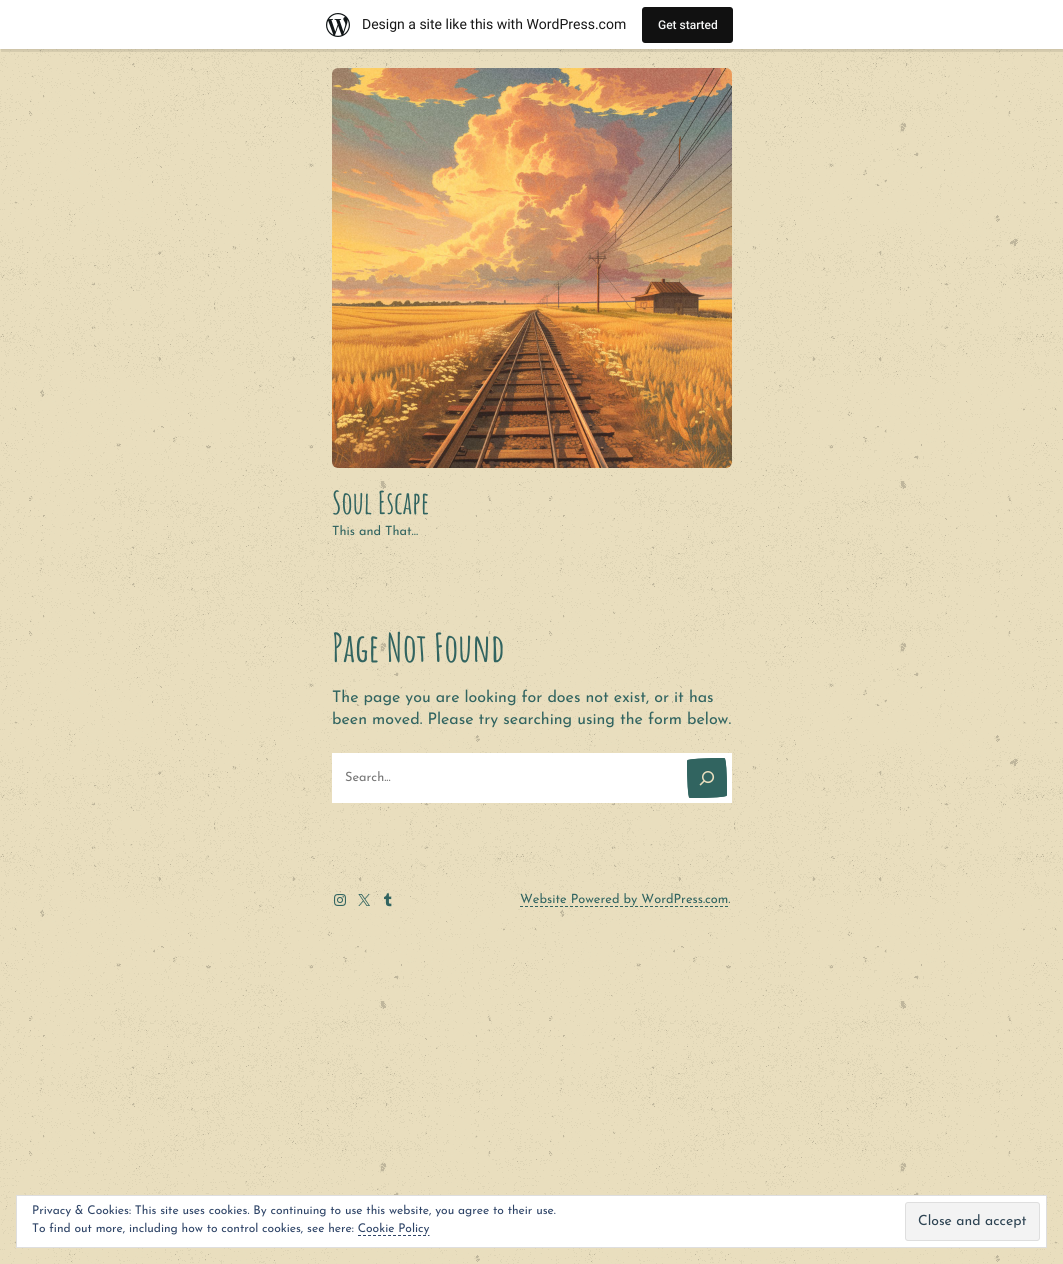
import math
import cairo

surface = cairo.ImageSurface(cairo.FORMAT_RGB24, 1063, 1264)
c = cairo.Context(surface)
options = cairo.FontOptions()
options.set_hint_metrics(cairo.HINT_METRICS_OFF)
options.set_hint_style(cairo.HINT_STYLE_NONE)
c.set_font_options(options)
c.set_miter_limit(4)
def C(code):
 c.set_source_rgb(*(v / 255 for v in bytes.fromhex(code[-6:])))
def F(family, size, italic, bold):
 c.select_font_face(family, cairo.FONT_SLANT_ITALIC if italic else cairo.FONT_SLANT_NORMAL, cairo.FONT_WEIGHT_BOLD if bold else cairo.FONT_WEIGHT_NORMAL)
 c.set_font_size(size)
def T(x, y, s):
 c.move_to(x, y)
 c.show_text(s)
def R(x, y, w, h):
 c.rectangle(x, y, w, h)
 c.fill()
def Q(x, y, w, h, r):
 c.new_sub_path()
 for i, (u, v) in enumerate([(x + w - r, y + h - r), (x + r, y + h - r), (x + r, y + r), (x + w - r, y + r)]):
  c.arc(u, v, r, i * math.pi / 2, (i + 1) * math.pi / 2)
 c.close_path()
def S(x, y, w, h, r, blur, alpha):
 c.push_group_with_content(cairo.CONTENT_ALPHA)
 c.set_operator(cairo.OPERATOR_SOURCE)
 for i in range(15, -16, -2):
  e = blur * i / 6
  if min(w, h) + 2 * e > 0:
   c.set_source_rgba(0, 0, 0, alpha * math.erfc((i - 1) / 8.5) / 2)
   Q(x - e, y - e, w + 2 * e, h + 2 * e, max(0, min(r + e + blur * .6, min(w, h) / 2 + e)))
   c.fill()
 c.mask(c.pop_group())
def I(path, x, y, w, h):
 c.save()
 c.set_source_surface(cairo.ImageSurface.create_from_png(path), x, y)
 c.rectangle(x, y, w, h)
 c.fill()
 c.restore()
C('e9debe')
c.paint()
I('2.png',0,49,1063,1215)
C('000000')
S(0,1,1063,49,0,1,.05)
c.set_source_rgba(0,0,0,0.08)
c.new_path()
c.move_to(1,49)
c.line_to(1,52)
c.line_to(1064,52)
c.line_to(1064,3)
c.line_to(1063,3)
c.line_to(1063,49)
c.close_path()
c.fill()
C('ffffff')
R(0,0,1063,49)
I('1.png',326,13,24,24)
F('Roboto',14,0,0)
C('171717')
T(362,29,'Design a site like this with WordPress.com')
C('111111')
Q(642,7,91,36,3)
c.fill()
F('Roboto Medium',12,0,0)
C('f6f7f7')
T(658,29,'Get started')
I('3.png',332,68,400,400)
F('Amatic SC',31,0,1)
C('316460')
T(332,514,'Soul Escape')
F('Josefin Sans',12.75,0,0)
T(332,535,'This and That…')
F('Amatic SC',39,0,1)
T(332,662,'Page Not Found')
F('Josefin Sans',16,0,0)
T(332,702,'The page you are looking for does not exist, or it has')
T(332,724,'been moved. Please try searching using the form below.')
C('ffffff')
R(332,753,400,50)
F('Josefin Sans',12.75,0,0)
C('757575')
T(345,781,'Search...')
C('316460')
c.new_path()
c.move_to(724,758)
c.curve_to(726,758,727,773,727,791)
c.line_to(727,795)
c.curve_to(727,797,712,798,694,798)
c.line_to(690,798)
c.curve_to(688,798,687,781,687,761)
c.curve_to(687,759,704,758,724,758)
c.close_path()
c.fill()
c.new_path()
c.move_to(724,759)
c.curve_to(725,759,726,773,726,790.5)
c.line_to(726,795)
c.curve_to(726,796,712,797,694.5,797)
c.line_to(690,797)
c.curve_to(689,797,688,781,688,761)
c.curve_to(688,760,704,759,724,759)
c.close_path()
c.stroke()
I('4.png',699,771,16,15)
I('5.png',334,894,12,12)
I('6.png',358,894,12,12)
I('7.png',384,893,8,14)
T(520,903,'Website Powered by WordPress.com.')
c.new_path()
c.move_to(520,906.5)
c.line_to(729.5,906.5)
c.set_line_width(1)
c.set_dash([3,2])
c.stroke()
C('ffffff')
c.rectangle(16.5,1195.5,1030,52)
c.fill_preserve()
C('dedede')
c.set_dash([])
c.stroke()
F('Josefin Sans',12,0,0)
C('2e4467')
T(32,1214,'Privacy & Cookies: This site uses cookies. By continuing to use this website, you agree to their use.')
T(32,1232,'To find out more, including how to control cookies, see here: Cookie Policy')
C('f3f3f3')
Q(905.5,1202.5,134,38,2.5)
c.fill_preserve()
C('dedede')
c.stroke()
F('Josefin Sans',14,0,0)
C('2e4453')
T(918,1225,'Close and accept')
c.new_path()
c.move_to(358,1235.5)
c.line_to(429.5,1235.5)
C('2e4467')
c.set_dash([3,2])
c.stroke()
surface.write_to_png('o.png')
